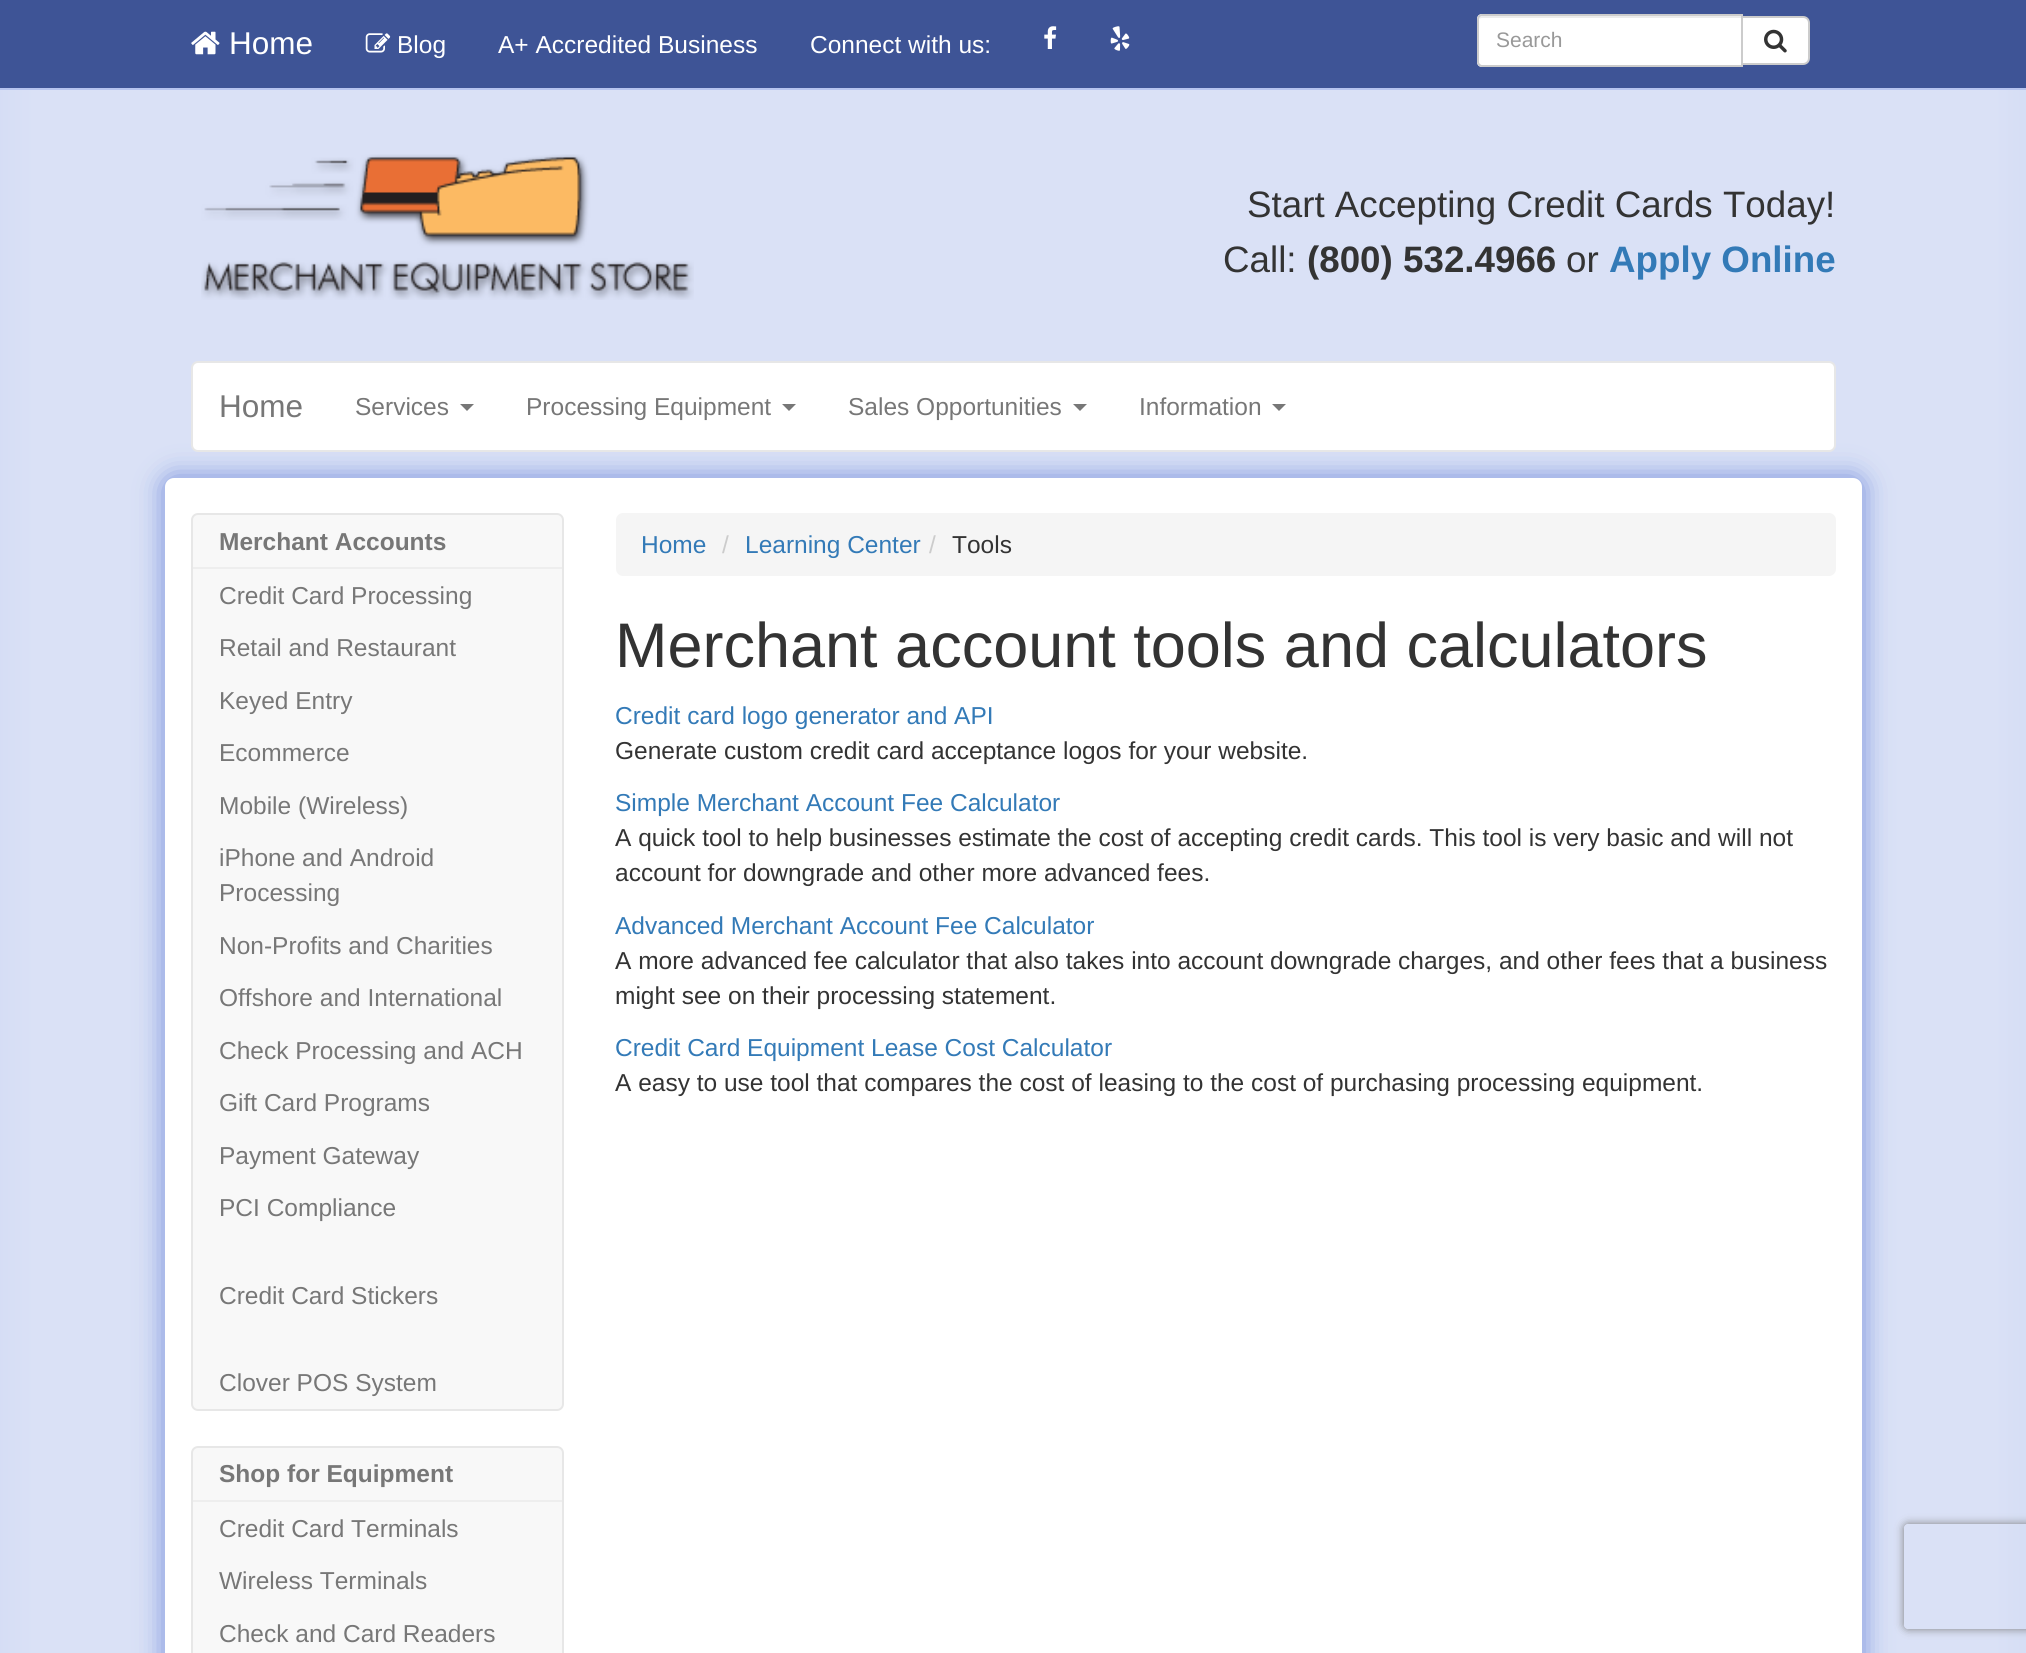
import math
import cairo

surface = cairo.ImageSurface(cairo.FORMAT_RGB24, 2026, 1653)
c = cairo.Context(surface)
options = cairo.FontOptions()
options.set_hint_metrics(cairo.HINT_METRICS_OFF)
options.set_hint_style(cairo.HINT_STYLE_NONE)
c.set_font_options(options)
c.set_miter_limit(4)
def C(code):
 c.set_source_rgb(*(v / 255 for v in bytes.fromhex(code[-6:])))
def F(family, size, italic, bold):
 c.select_font_face(family, cairo.FONT_SLANT_ITALIC if italic else cairo.FONT_SLANT_NORMAL, cairo.FONT_WEIGHT_BOLD if bold else cairo.FONT_WEIGHT_NORMAL)
 c.set_font_size(size)
def T(x, y, s):
 c.move_to(x, y)
 c.show_text(s)
def R(x, y, w, h):
 c.rectangle(x, y, w, h)
 c.fill()
def Q(x, y, w, h, r):
 c.new_sub_path()
 for i, (u, v) in enumerate([(x + w - r, y + h - r), (x + r, y + h - r), (x + r, y + r), (x + w - r, y + r)]):
  c.arc(u, v, r, i * math.pi / 2, (i + 1) * math.pi / 2)
 c.close_path()
def S(x, y, w, h, r, blur, alpha):
 c.push_group_with_content(cairo.CONTENT_ALPHA)
 c.set_operator(cairo.OPERATOR_SOURCE)
 for i in range(15, -16, -2):
  e = blur * i / 6
  if min(w, h) + 2 * e > 0:
   c.set_source_rgba(0, 0, 0, alpha * math.erfc((i - 1) / 8.5) / 2)
   Q(x - e, y - e, w + 2 * e, h + 2 * e, max(0, min(r + e + blur * .6, min(w, h) / 2 + e)))
   c.fill()
 c.mask(c.pop_group())
def I(path, x, y, w, h):
 c.save()
 c.set_source_surface(cairo.ImageSurface.create_from_png(path), x, y)
 c.rectangle(x, y, w, h)
 c.fill()
 c.restore()
C('ffffff')
c.paint()
I('1.png',0,90,2026,1563)
C('3e5496')
R(0,0,2026,88)
C('b6c4ef')
R(0,88,2026,2)
I('2.png',191,31,29,24)
F('Liberation Sans',31.5,0,0)
C('ffffff')
T(229,54,'Home')
I('3.png',365,33,26,20)
F('Liberation Sans',24.5,0,0)
T(397,53,'Blog')
T(498,53,'A+ Accredited Business')
T(810,53,'Connect with us:')
I('4.png',1044,26,13,23)
I('5.png',1110,26,20,25)
c.new_path()
c.move_to(1482,14)
c.line_to(1743,14)
c.line_to(1743,67)
c.line_to(1482,67)
c.curve_to(1479,67,1477,65,1477,62)
c.line_to(1477,19)
c.curve_to(1477,16,1479,14,1482,14)
c.close_path()
c.fill()
C('ececec')
c.new_path()
c.move_to(1482,18)
c.line_to(1741,18)
c.line_to(1741,16)
c.line_to(1483,16)
c.curve_to(1480,16,1479,18,1479,21)
c.curve_to(1479,19,1480,18,1482,18)
c.close_path()
c.fill()
c.new_path()
c.move_to(1482,15)
c.line_to(1742,15)
c.line_to(1742,66)
c.line_to(1482,66)
c.curve_to(1480,66,1478,64,1478,62)
c.line_to(1478,19)
c.curve_to(1478,17,1480,15,1482,15)
c.close_path()
C('cccccc')
c.stroke()
F('Liberation Sans',21,0,0)
C('999999')
T(1496,47,'Search')
C('ffffff')
c.new_path()
c.move_to(1742,17)
c.line_to(1803,17)
c.curve_to(1806.5,17,1809,19.5,1809,23)
c.line_to(1809,58)
c.curve_to(1809,61.5,1806.5,64,1803,64)
c.line_to(1742,64)
c.close_path()
c.fill_preserve()
C('cccccc')
c.stroke()
I('6.png',1764,29,23,24)
I('7.png',201,154,493,146)
F('Liberation Sans',36.75,0,0)
C('333333')
T(1247,217,'Start Accepting Credit Cards Today!')
T(1223,272,'Call:')
F('Liberation Sans',36.75,0,1)
T(1307,272,'(800) 532.4966')
F('Liberation Sans',36.75,0,0)
T(1566,272,'or')
F('Liberation Sans',36.75,0,1)
C('337ab7')
T(1609,272,'Apply Online')
C('7e96de')
S(163,476,1701,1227,11,13,1)
C('ffffff')
Q(192,362,1643,89,6)
c.fill_preserve()
C('e7e7e7')
c.stroke()
F('Liberation Sans',31.5,0,0)
C('777777')
T(219,417,'Home')
F('Liberation Sans',24.5,0,0)
T(355,415,'Services')
c.new_path()
c.move_to(460,404)
c.line_to(474,404)
c.line_to(467,411)
c.close_path()
c.fill()
T(526,415,'Processing Equipment')
c.new_path()
c.move_to(782,404)
c.line_to(796,404)
c.line_to(789,411)
c.close_path()
c.fill()
T(848,415,'Sales Opportunities')
c.new_path()
c.move_to(1073,404)
c.line_to(1087,404)
c.line_to(1080,411)
c.close_path()
c.fill()
T(1139,415,'Information')
c.new_path()
c.move_to(1272,404)
c.line_to(1286,404)
c.line_to(1279,411)
c.close_path()
c.fill()
C('ffffff')
Q(165,478,1697,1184,9)
c.fill()
C('f8f8f8')
Q(192,514,371,896,6)
c.fill_preserve()
C('e7e7e7')
c.stroke()
C('eeeeee')
R(193,567,369,2)
F('Liberation Sans',24.5,0,1)
C('777777')
T(219,550,'Merchant Accounts')
F('Liberation Sans',24.5,0,0)
T(219,604,'Credit Card Processing')
T(219,656,'Retail and Restaurant')
T(219,709,'Keyed Entry')
T(219,761,'Ecommerce')
T(219,814,'Mobile (Wireless)')
T(219,866,'iPhone and Android')
T(219,901,'Processing')
T(219,954,'Non-Profits and Charities')
T(219,1006,'Offshore and International')
T(219,1059,'Check Processing and ACH')
T(219,1111,'Gift Card Programs')
T(219,1164,'Payment Gateway')
T(219,1216,'PCI Compliance')
T(219,1304,'Credit Card Stickers')
T(219,1391,'Clover POS System')
C('f8f8f8')
Q(192,1447,371,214,6)
c.fill_preserve()
C('e7e7e7')
c.stroke()
C('eeeeee')
R(193,1500,369,2)
F('Liberation Sans',24.5,0,1)
C('777777')
T(219,1482,'Shop for Equipment')
F('Liberation Sans',24.5,0,0)
T(219,1537,'Credit Card Terminals')
T(219,1589,'Wireless Terminals')
T(219,1642,'Check and Card Readers')
C('f5f5f5')
Q(616,513,1220,63,7)
c.fill()
C('337ab7')
T(641,553,'Home')
C('cccccc')
T(722,553,'/')
C('337ab7')
T(745,553,'Learning Center')
C('cccccc')
T(929,553,'/')
C('333333')
T(952,553,'Tools')
F('Liberation Sans',63,0,0)
T(615,667,'Merchant account tools and calculators')
F('Liberation Sans',24.5,0,0)
C('337ab7')
T(615,724,'Credit card logo generator and API')
C('333333')
T(615,759,'Generate custom credit card acceptance logos for your website.')
C('337ab7')
T(615,811,'Simple Merchant Account Fee Calculator')
C('333333')
T(615,846,'A quick tool to help businesses estimate the cost of accepting credit cards. This tool is very basic and will not')
T(615,881,'account for downgrade and other more advanced fees.')
C('337ab7')
T(615,934,'Advanced Merchant Account Fee Calculator')
C('333333')
T(615,969,'A more advanced fee calculator that also takes into account downgrade charges, and other fees that a business')
T(615,1004,'might see on their processing statement.')
C('337ab7')
T(615,1056,'Credit Card Equipment Lease Cost Calculator')
C('333333')
T(615,1091,'A easy to use tool that compares the cost of leasing to the cost of purchasing processing equipment.')
c.save()
c.set_fill_rule(cairo.FILL_RULE_EVEN_ODD)
c.new_path()
c.move_to(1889,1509)
c.line_to(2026,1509)
c.line_to(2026,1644)
c.line_to(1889,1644)
c.close_path()
c.move_to(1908,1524)
c.line_to(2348,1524)
c.curve_to(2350,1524,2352,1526,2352,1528)
c.line_to(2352,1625)
c.curve_to(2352,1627,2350,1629,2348,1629)
c.line_to(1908,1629)
c.curve_to(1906,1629,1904,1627,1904,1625)
c.line_to(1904,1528)
c.curve_to(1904,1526,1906,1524,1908,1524)
c.close_path()
c.clip()
C('808080')
S(1904,1524,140,105,4,4.5,1)
c.restore()
surface.write_to_png('o.png')
